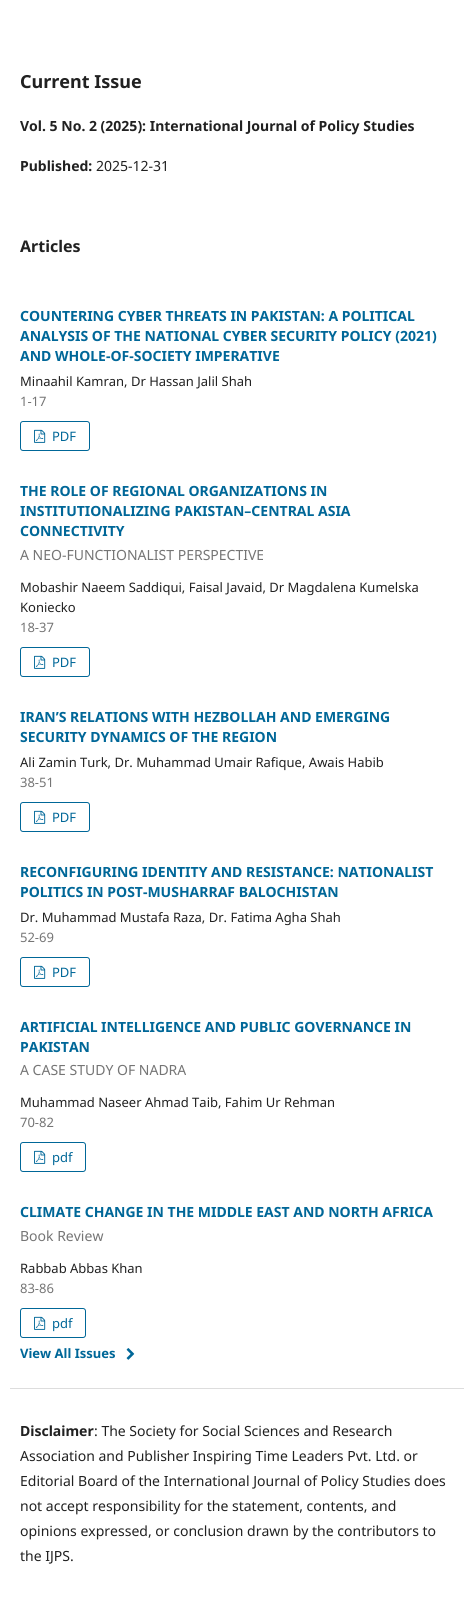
import math
import cairo

surface = cairo.ImageSurface(cairo.FORMAT_RGB24, 474, 1603)
c = cairo.Context(surface)
options = cairo.FontOptions()
options.set_hint_metrics(cairo.HINT_METRICS_OFF)
options.set_hint_style(cairo.HINT_STYLE_NONE)
c.set_font_options(options)
c.set_miter_limit(4)
def C(code):
 c.set_source_rgb(*(v / 255 for v in bytes.fromhex(code[-6:])))
def F(family, size, italic, bold):
 c.select_font_face(family, cairo.FONT_SLANT_ITALIC if italic else cairo.FONT_SLANT_NORMAL, cairo.FONT_WEIGHT_BOLD if bold else cairo.FONT_WEIGHT_NORMAL)
 c.set_font_size(size)
def T(x, y, s):
 c.move_to(x, y)
 c.show_text(s)
def R(x, y, w, h):
 c.rectangle(x, y, w, h)
 c.fill()
def Q(x, y, w, h, r):
 c.new_sub_path()
 for i, (u, v) in enumerate([(x + w - r, y + h - r), (x + r, y + h - r), (x + r, y + r), (x + w - r, y + r)]):
  c.arc(u, v, r, i * math.pi / 2, (i + 1) * math.pi / 2)
 c.close_path()
def I(path, x, y, w, h):
 c.save()
 c.set_source_surface(cairo.ImageSurface.create_from_png(path), x, y)
 c.rectangle(x, y, w, h)
 c.fill()
 c.restore()
C('ffffff')
c.paint()
F('Noto Sans',18,0,1)
C('212121')
T(20,88,'Current Issue')
F('Noto Sans',14,0,1)
T(20,131,'Vol. 5 No. 2 (2025): International Journal of Policy Studies')
T(20,171,'Published:')
F('Noto Sans',14,0,0)
T(96,171,'2025-12-31')
F('Noto Sans',16,0,1)
T(20,252,'Articles')
F('Noto Sans',14,0,1)
C('006798')
T(20,321,'COUNTERING CYBER THREATS IN PAKISTAN: A POLITICAL')
T(20,341,'ANALYSIS OF THE NATIONAL CYBER SECURITY POLICY (2021)')
T(20,361,'AND WHOLE-OF-SOCIETY IMPERATIVE')
F('Noto Sans',13,0,0)
C('212121')
T(20,386,'Minaahil Kamran, Dr Hassan Jalil Shah')
C('757575')
T(20,406,'1-17')
Q(20.5,421.5,69,29,2.5)
C('006798')
c.set_line_width(1)
c.stroke()
I('1.png',34,429,12,14)
T(52,441,'PDF')
F('Noto Sans',14,0,1)
T(20,496,'THE ROLE OF REGIONAL ORGANIZATIONS IN')
T(20,516,'INSTITUTIONALIZING PAKISTAN–CENTRAL ASIA')
T(20,536,'CONNECTIVITY')
F('Noto Sans',14,0,0)
C('757575')
T(20,560,'A NEO-FUNCTIONALIST PERSPECTIVE')
F('Noto Sans',13,0,0)
C('212121')
T(20,592,'Mobashir Naeem Saddiqui, Faisal Javaid, Dr Magdalena Kumelska')
T(20,612,'Koniecko')
C('757575')
T(20,632,'18-37')
Q(20.5,647.5,69,29,2.5)
C('006798')
c.stroke()
I('1.png',34,655,12,14)
T(52,667,'PDF')
F('Noto Sans',14,0,1)
T(20,722,'IRAN’S RELATIONS WITH HEZBOLLAH AND EMERGING')
T(20,742,'SECURITY DYNAMICS OF THE REGION')
F('Noto Sans',13,0,0)
C('212121')
T(20,767,'Ali Zamin Turk, Dr. Muhammad Umair Rafique, Awais Habib')
C('757575')
T(20,787,'38-51')
Q(20.5,802.5,69,29,2.5)
C('006798')
c.stroke()
I('1.png',34,810,12,14)
T(52,822,'PDF')
F('Noto Sans',14,0,1)
T(20,877,'RECONFIGURING IDENTITY AND RESISTANCE: NATIONALIST')
T(20,897,'POLITICS IN POST-MUSHARRAF BALOCHISTAN')
F('Noto Sans',13,0,0)
C('212121')
T(20,922,'Dr. Muhammad Mustafa Raza, Dr. Fatima Agha Shah')
C('757575')
T(20,942,'52-69')
Q(20.5,957.5,69,29,2.5)
C('006798')
c.stroke()
I('1.png',34,965,12,14)
T(52,977,'PDF')
F('Noto Sans',14,0,1)
T(20,1032,'ARTIFICIAL INTELLIGENCE AND PUBLIC GOVERNANCE IN')
T(20,1052,'PAKISTAN')
F('Noto Sans',14,0,0)
C('757575')
T(20,1075,'A CASE STUDY OF NADRA')
F('Noto Sans',13,0,0)
C('212121')
T(20,1107,'Muhammad Naseer Ahmad Taib, Fahim Ur Rehman')
C('757575')
T(20,1127,'70-82')
Q(20.5,1142.5,65,29,2.5)
C('006798')
c.stroke()
I('1.png',34,1150,12,14)
T(52,1162,'pdf')
F('Noto Sans',14,0,1)
T(20,1217,'CLIMATE CHANGE IN THE MIDDLE EAST AND NORTH AFRICA')
F('Noto Sans',14,0,0)
C('757575')
T(20,1241,'Book Review')
F('Noto Sans',13,0,0)
C('212121')
T(20,1273,'Rabbab Abbas Khan')
C('757575')
T(20,1293,'83-86')
Q(20.5,1308.5,65,29,2.5)
C('006798')
c.stroke()
I('1.png',34,1316,12,14)
T(52,1328,'pdf')
F('Noto Sans',13,0,1)
T(20,1358,'View All Issues')
I('2.png',126,1348,9,12)
C('dddddd')
R(10,1388,454,1)
F('Noto Sans',14,0,1)
C('212121')
T(20,1436,'Disclaimer')
F('Noto Sans',14,0,0)
T(94,1436,': The Society for Social Sciences and Research')
T(20,1461,'Association and Publisher Inspiring Time Leaders Pvt. Ltd. or')
T(20,1486,'Editorial Board of the International Journal of Policy Studies does')
T(20,1511,'not accept responsibility for the statement, contents, and')
T(20,1536,'opinions expressed, or conclusion drawn by the contributors to')
T(20,1561,'the IJPS.')
surface.write_to_png('o.png')
